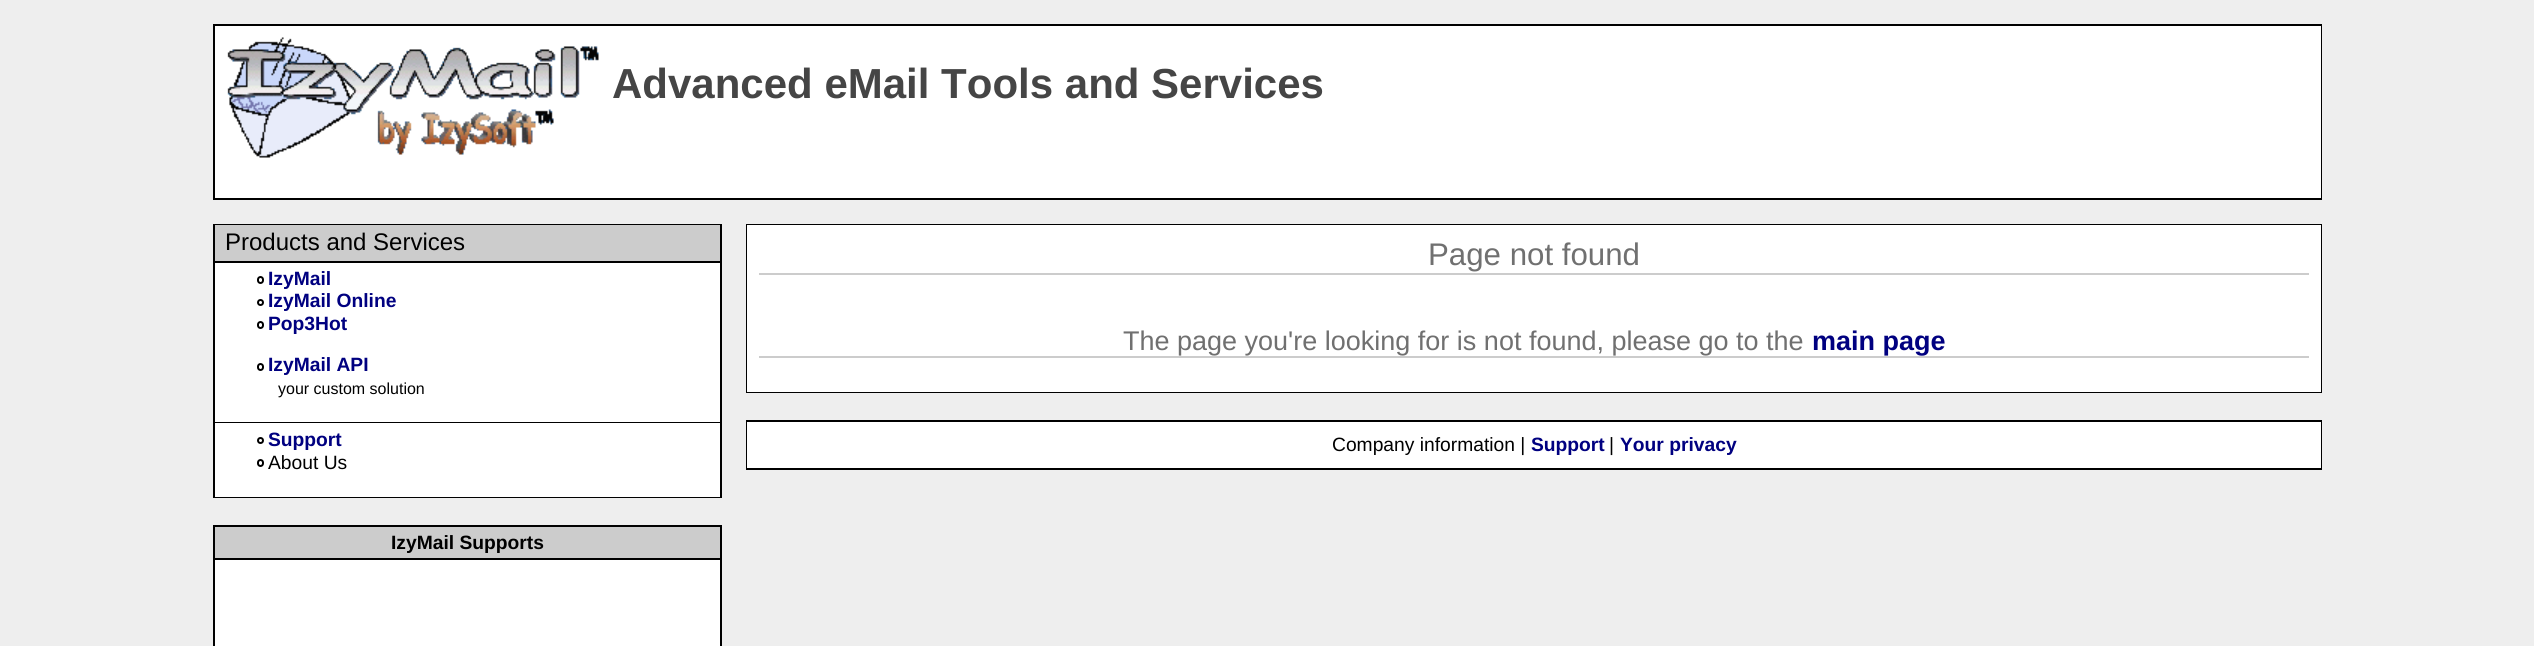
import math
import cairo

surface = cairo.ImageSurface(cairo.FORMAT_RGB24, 2534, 646)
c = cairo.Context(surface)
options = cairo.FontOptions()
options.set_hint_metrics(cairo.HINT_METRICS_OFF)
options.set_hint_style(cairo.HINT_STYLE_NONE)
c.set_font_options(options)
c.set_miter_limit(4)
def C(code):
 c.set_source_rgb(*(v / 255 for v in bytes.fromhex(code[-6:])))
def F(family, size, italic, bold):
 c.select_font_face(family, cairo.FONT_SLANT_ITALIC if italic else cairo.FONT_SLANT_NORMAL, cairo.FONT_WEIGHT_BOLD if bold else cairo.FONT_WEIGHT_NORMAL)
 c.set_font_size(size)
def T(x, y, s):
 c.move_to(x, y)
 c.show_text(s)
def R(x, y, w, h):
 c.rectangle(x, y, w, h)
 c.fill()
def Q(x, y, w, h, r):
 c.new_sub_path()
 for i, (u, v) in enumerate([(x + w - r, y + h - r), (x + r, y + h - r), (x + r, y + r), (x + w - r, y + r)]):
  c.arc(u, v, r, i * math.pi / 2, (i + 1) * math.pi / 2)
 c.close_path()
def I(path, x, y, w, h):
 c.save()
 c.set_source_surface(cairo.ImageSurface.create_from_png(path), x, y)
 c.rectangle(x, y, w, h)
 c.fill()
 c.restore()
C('eeeeee')
c.paint()
C('000000')
R(213,24,2109,176)
C('ffffff')
R(215,26,2106,172)
I('1.png',227,37,372,121)
F('Liberation Sans',42,0,1)
C('454545')
T(612,98,'Advanced eMail Tools and Services')
C('000000')
R(213,224,509,274)
C('cccccc')
R(215,225,505,36)
F('Liberation Sans',24,0,0)
C('000000')
T(225,250,'Products and Services')
C('ffffff')
R(215,263,505,159)
Q(258,277,5,6,2.5)
C('000000')
c.stroke()
F('Liberation Sans',19.25,0,1)
C('000080')
T(268,285,'IzyMail')
c.new_path()
c.arc(260.5,302.5,2.5,0,2 * math.pi)
C('000000')
c.stroke()
C('000080')
T(268,307,'IzyMail Online')
Q(258,322,5,6,2.5)
C('000000')
c.stroke()
C('000080')
T(268,330,'Pop3Hot')
Q(258,364,5,6,2.5)
C('000000')
c.stroke()
C('000080')
T(268,371,'IzyMail API')
F('Liberation Sans',16,0,0)
C('000000')
T(278,394,'your custom solution')
C('ffffff')
R(215,423,505,74)
c.new_path()
c.arc(260.5,440.5,2.5,0,2 * math.pi)
C('000000')
c.stroke()
F('Liberation Sans',19.25,0,1)
C('000080')
T(268,446,'Support')
Q(258,460,5,6,2.5)
C('000000')
c.stroke()
F('Liberation Sans',19.25,0,0)
T(268,469,'About Us')
R(213,525,509,121)
C('cccccc')
R(215,527,505,31)
F('Liberation Sans',19.25,0,1)
C('000000')
T(391,549,'IzyMail Supports')
C('ffffff')
R(215,560,505,86)
C('000000')
R(746,224,1576,169)
C('ffffff')
R(747,225,1574,167)
C('cccccc')
R(759,273,1550,2)
F('Liberation Sans',31.25,0,0)
C('707070')
T(1428,265,'Page not found')
C('cccccc')
R(759,356,1550,2)
F('Liberation Sans',27,0,0)
C('707070')
T(1123,350,'The page you\'re looking for is not found, please go to the')
F('Liberation Sans',27,0,1)
C('000080')
T(1812,350,'main page')
C('000000')
R(746,420,1576,50)
C('ffffff')
R(747,422,1574,46)
F('Liberation Sans',19.25,0,0)
C('000000')
T(1332,451,'Company information |')
F('Liberation Sans',19.25,0,1)
C('000080')
T(1531,451,'Support')
F('Liberation Sans',19.25,0,0)
C('000000')
T(1609,451,'|')
F('Liberation Sans',19.25,0,1)
C('000080')
T(1620,451,'Your privacy')
surface.write_to_png('o.png')
